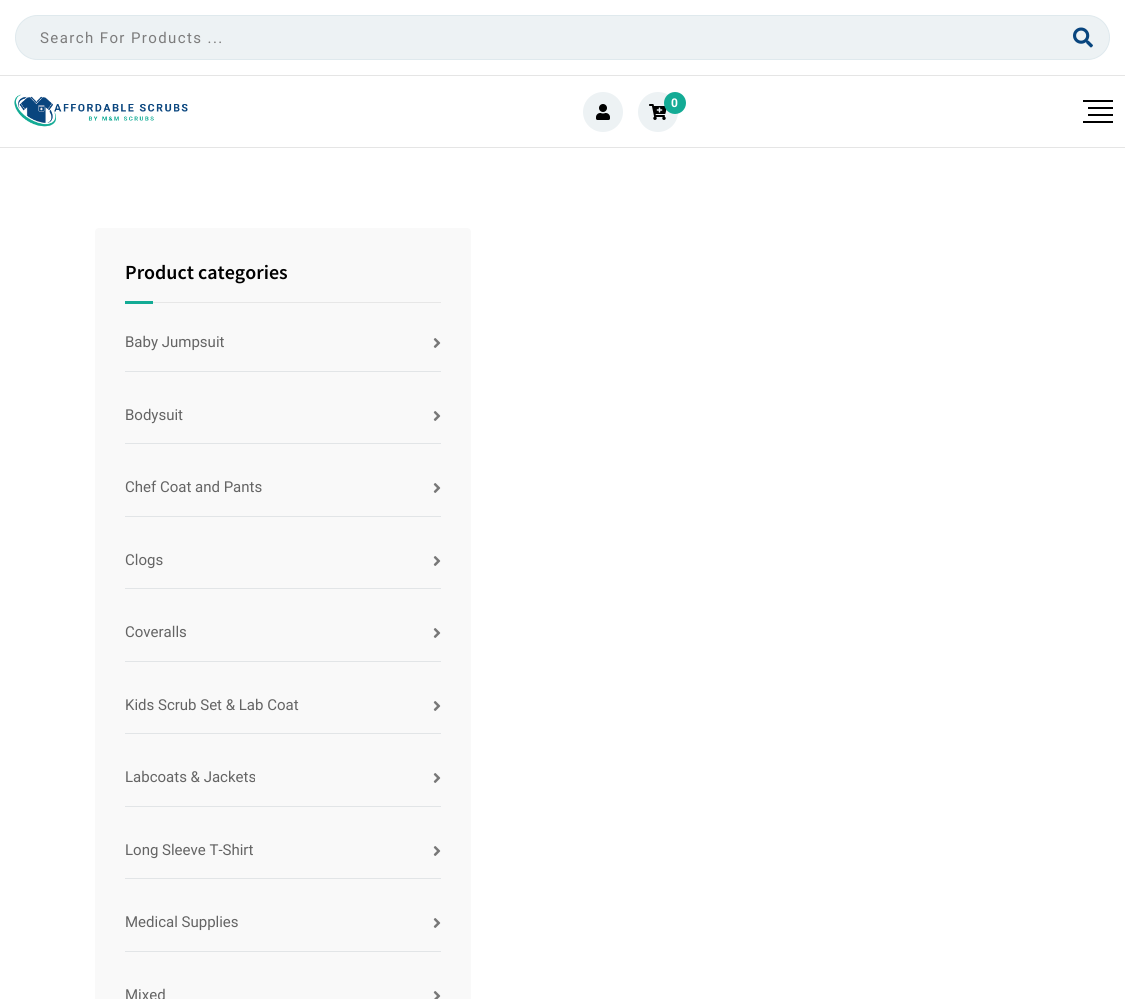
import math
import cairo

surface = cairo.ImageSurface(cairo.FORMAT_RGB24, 1125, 999)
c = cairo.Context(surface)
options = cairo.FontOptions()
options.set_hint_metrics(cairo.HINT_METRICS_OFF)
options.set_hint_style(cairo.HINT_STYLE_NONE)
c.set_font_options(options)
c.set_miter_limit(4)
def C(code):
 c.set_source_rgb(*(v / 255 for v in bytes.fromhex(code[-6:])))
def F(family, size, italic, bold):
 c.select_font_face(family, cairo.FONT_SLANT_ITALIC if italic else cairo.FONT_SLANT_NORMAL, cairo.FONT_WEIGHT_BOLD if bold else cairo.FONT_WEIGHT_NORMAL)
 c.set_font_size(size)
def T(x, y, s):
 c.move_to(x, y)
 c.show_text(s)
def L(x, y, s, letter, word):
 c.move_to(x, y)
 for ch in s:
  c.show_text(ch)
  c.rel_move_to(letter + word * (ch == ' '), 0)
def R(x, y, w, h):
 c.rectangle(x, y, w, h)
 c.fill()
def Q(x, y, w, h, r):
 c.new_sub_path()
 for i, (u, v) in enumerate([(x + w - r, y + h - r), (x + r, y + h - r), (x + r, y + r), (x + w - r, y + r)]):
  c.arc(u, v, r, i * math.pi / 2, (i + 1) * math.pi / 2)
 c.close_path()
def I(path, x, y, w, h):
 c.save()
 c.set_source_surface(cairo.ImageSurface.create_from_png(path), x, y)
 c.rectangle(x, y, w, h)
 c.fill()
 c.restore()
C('ffffff')
c.paint()
C('edf2f4')
Q(15.5,15.5,1094,44,22)
c.fill_preserve()
C('dfe9ed')
c.set_line_width(1)
c.stroke()
F('Roboto',15,0,0)
C('7c7c7c')
L(40,43,'Search For Products ...',1.4,0)
I('1.png',1073,27,20,21)
C('e5e5e5')
R(0,75,1125,1)
R(0,147,1125,1)
I('2.png',14,94,174,33)
C('edf2f4')
c.arc(603,112,20,0,2 * math.pi)
c.fill()
I('3.png',596,104,14,16)
c.arc(658,112,20,0,2 * math.pi)
c.fill()
I('4.png',649,104,18,16)
C('13ab95')
c.arc(675,103,11,0,2 * math.pi)
c.fill()
F('Roboto',12,0,1)
C('ffffff')
T(671,107,'0')
C('000000')
R(1083,100,30,2)
R(1088,107,25,2)
R(1088,114,25,2)
R(1083,121,30,2)
C('f9f9f9')
Q(95,228,376,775,4)
c.fill()
C('e7e7e7')
R(153,302,288,1)
F('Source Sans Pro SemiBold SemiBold',20,0,0)
C('000000')
T(125,279,'Product categories')
C('13ab95')
R(125,301,28,3)
C('e2e5e7')
R(125,371,316,1)
F('Roboto',15,0,0)
C('646464')
T(125,347,'Baby Jumpsuit')
I('5.png',433,338,8,10)
C('e2e5e7')
R(125,443,316,1)
C('646464')
T(125,420,'Bodysuit')
I('5.png',433,411,8,10)
C('e2e5e7')
R(125,516,316,1)
C('646464')
T(125,492,'Chef Coat and Pants')
I('5.png',433,483,8,10)
C('e2e5e7')
R(125,588,316,1)
C('646464')
T(125,565,'Clogs')
I('5.png',433,556,8,10)
C('e2e5e7')
R(125,661,316,1)
C('646464')
T(125,637,'Coveralls')
I('5.png',433,628,8,10)
C('e2e5e7')
R(125,733,316,1)
C('646464')
T(125,710,'Kids Scrub Set & Lab Coat')
I('5.png',433,701,8,10)
C('e2e5e7')
R(125,806,316,1)
C('646464')
T(125,782,'Labcoats & Jackets')
I('5.png',433,773,8,10)
C('e2e5e7')
R(125,878,316,1)
C('646464')
T(125,855,'Long Sleeve T-Shirt')
I('5.png',433,846,8,10)
C('e2e5e7')
R(125,951,316,1)
C('646464')
T(125,927,'Medical Supplies')
I('5.png',433,918,8,10)
T(125,1000,'Mixed')
I('6.png',433,991,8,8)
surface.write_to_png('o.png')
